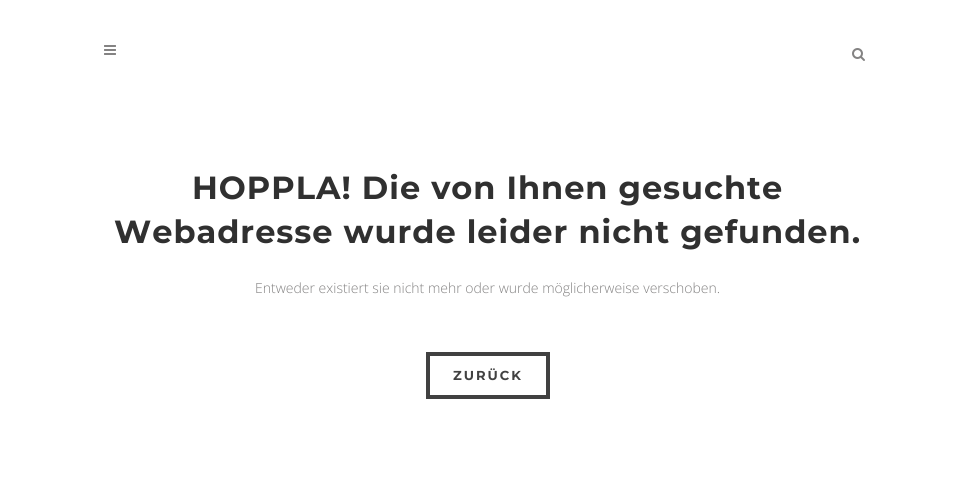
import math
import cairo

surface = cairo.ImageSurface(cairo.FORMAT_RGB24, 976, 479)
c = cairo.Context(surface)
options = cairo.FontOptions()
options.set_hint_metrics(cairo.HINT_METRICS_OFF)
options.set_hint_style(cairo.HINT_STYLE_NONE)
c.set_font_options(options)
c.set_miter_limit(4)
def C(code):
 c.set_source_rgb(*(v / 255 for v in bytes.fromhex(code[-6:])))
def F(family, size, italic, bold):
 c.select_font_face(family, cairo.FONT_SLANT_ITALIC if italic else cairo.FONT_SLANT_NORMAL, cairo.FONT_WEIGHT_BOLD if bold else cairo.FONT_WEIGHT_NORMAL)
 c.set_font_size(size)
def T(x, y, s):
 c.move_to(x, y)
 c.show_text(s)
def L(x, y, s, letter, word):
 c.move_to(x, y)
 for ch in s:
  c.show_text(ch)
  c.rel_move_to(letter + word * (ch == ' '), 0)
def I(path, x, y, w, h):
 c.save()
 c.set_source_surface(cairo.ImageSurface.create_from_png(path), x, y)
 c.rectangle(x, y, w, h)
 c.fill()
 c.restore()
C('ffffff')
c.paint()
I('1.png',104,45,12,10)
I('2.png',852,48,13,13)
F('Montserrat',32,0,1)
C('303030')
L(192,199,'HOPPLA! Die von Ihnen gesuchte',1,0)
L(114,243,'Webadresse wurde leider nicht gefunden.',1,0)
F('Open Sans Light',14,0,0)
C('848383')
T(255,293,'Entweder existiert sie nicht mehr oder wurde möglicherweise verschoben.')
c.rectangle(428,354,120,43)
C('414141')
c.set_line_width(4)
c.stroke()
F('Montserrat',13,0,1)
L(453,380,'ZURÜCK',2,0)
surface.write_to_png('o.png')
